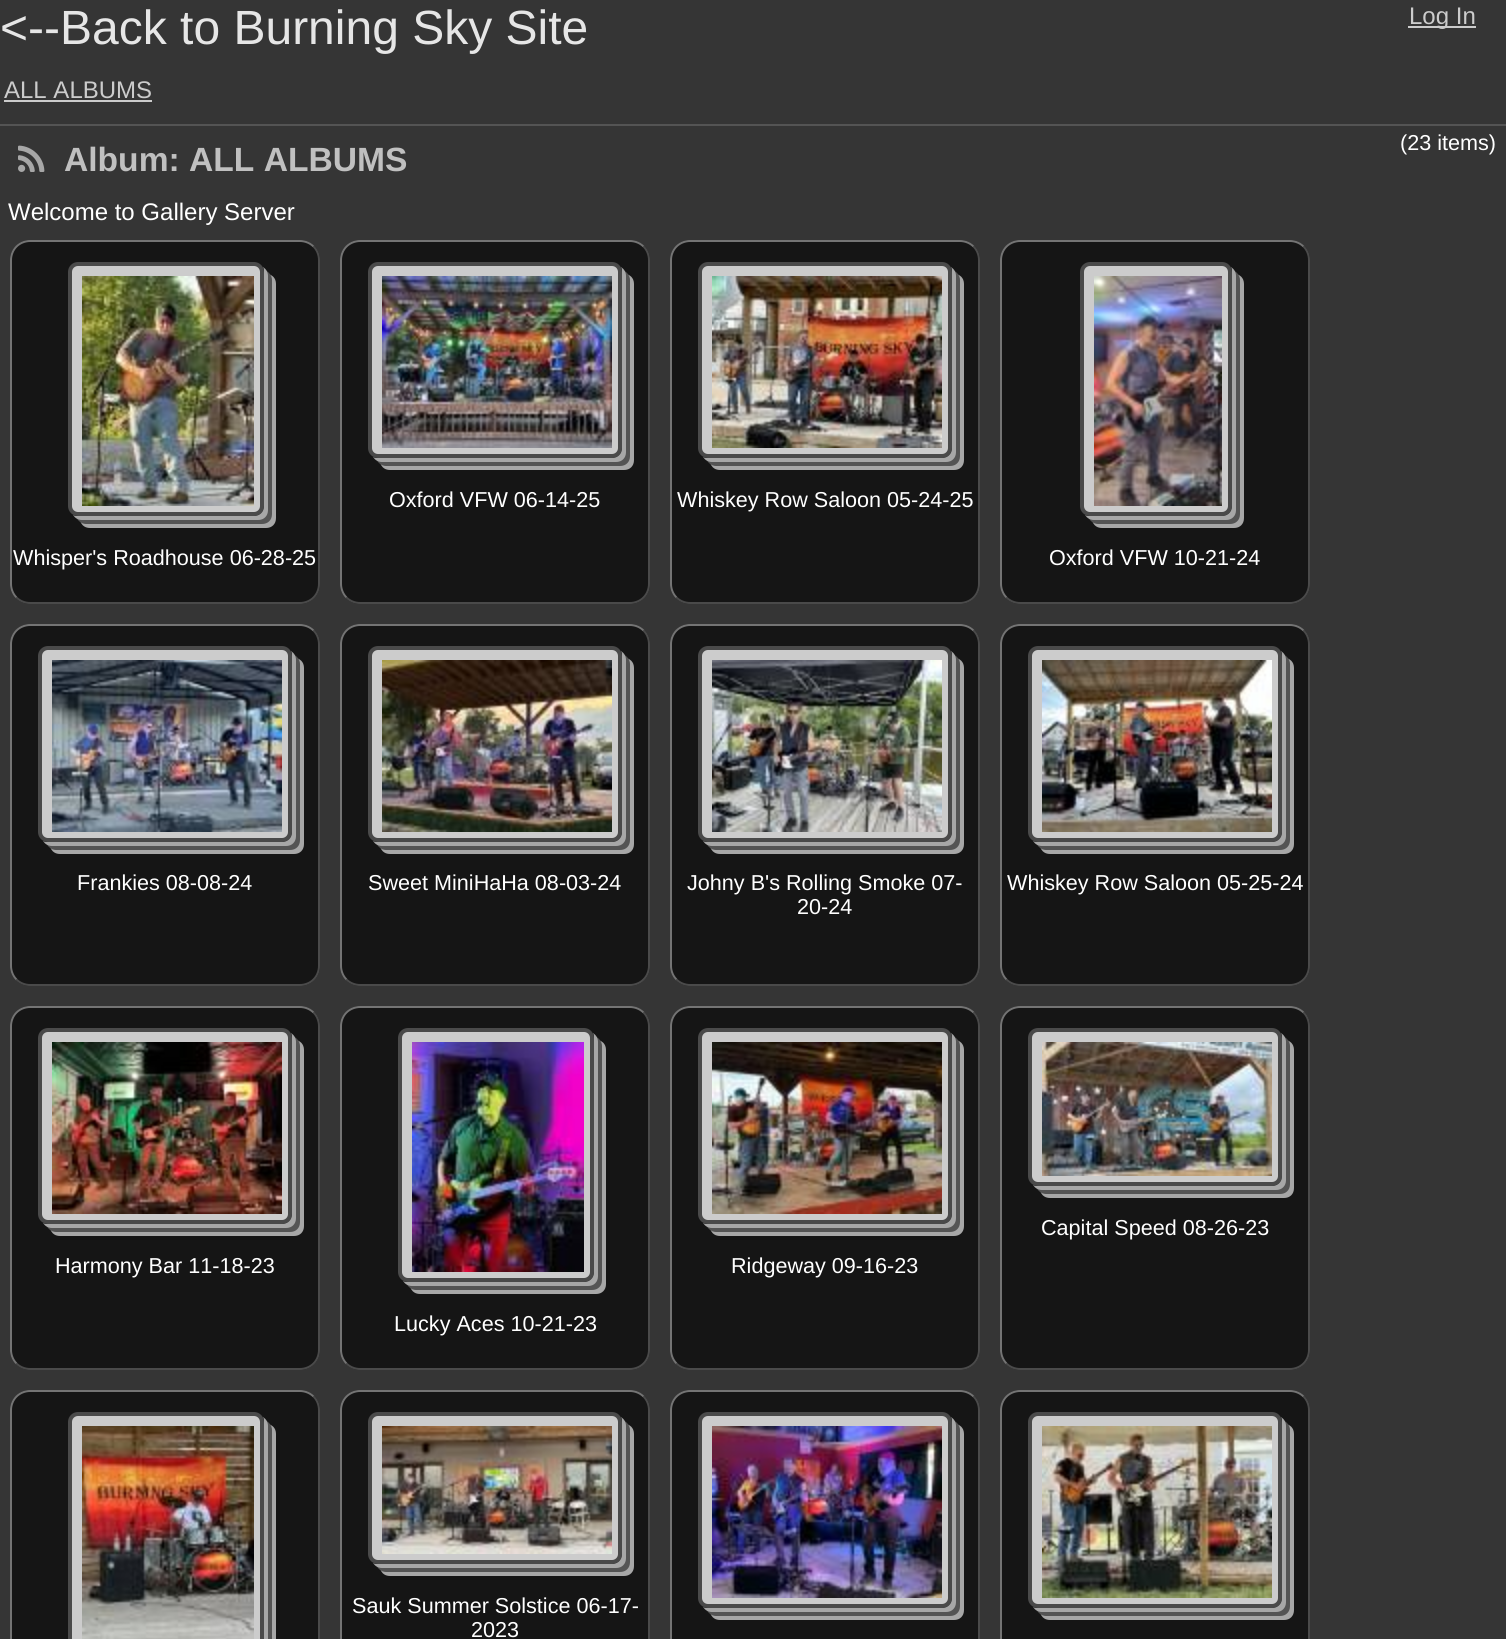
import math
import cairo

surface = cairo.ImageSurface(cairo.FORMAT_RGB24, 1506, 1639)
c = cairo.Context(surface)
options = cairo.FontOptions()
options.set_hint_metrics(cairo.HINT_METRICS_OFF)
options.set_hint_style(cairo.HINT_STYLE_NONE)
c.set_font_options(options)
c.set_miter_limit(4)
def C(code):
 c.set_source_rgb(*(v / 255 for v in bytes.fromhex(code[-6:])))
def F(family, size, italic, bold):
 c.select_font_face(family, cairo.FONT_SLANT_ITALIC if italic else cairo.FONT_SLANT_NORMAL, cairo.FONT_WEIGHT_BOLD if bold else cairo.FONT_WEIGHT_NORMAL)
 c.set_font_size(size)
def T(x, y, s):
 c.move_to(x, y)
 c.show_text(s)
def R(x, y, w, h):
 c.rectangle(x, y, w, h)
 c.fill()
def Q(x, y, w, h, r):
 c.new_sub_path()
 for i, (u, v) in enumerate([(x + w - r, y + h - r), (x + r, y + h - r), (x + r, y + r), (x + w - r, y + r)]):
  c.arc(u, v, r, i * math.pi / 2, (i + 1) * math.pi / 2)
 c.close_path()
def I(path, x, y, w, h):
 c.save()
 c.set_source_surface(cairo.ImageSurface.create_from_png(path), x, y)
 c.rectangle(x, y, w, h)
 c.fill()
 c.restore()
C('353535')
c.paint()
F('Liberation Sans',48,0,0)
C('e6e6e6')
T(0,44,'<--Back to Burning Sky Site')
C('cccccc')
R(1408,26,68,2)
F('Liberation Sans',24,0,0)
T(1409,24,'Log In')
C('545454')
R(0,124,1506,2)
C('cccccc')
T(4,98,'ALL ALBUMS')
R(4,100,148,2)
I('1.png',18,145,27,27)
F('Liberation Sans',33.6,0,1)
C('c0c0c0')
T(64,171,'Album: ALL ALBUMS')
F('Liberation Sans',21.6,0,0)
C('ffffff')
T(1400,150,'(23 items)')
F('Liberation Sans',24,0,0)
T(8,220,'Welcome to Gallery Server')
C('151515')
Q(340,240,310,364,20)
c.fill()
c.new_path()
c.move_to(643.5,246.5)
c.curve_to(647,250,649,255,649,260)
c.line_to(649,584)
c.curve_to(649,589,647,594,643.5,597.5)
c.curve_to(640,601,635,603,630,603)
c.line_to(360,603)
c.curve_to(355,603,350,601,346.5,597.5)
C('4a4a4a')
c.stroke()
c.new_path()
c.move_to(346.5,597.5)
c.curve_to(343,594,341,589,341,584)
c.line_to(341,260)
c.curve_to(341,255,343,250,346.5,246.5)
c.curve_to(350,243,355,241,360,241)
c.line_to(630,241)
c.curve_to(635,241,640,243,643.5,246.5)
C('747474')
c.stroke()
C('a7a7a7')
c.new_path()
c.move_to(380,458)
c.line_to(380,460)
c.curve_to(380,466,384,470,390,470)
c.line_to(624,470)
c.curve_to(630,470,634,466,634,460)
c.line_to(634,284)
c.curve_to(634,278,630,274,624,274)
c.line_to(622,274)
c.line_to(622,448)
c.curve_to(622,454,618,458,612,458)
c.close_path()
c.fill()
C('545454')
c.new_path()
c.move_to(376,458)
c.curve_to(377,462,381,466,386,466)
c.line_to(620,466)
c.curve_to(626,466,630,462,630,456)
c.line_to(630,280)
c.curve_to(630,275,626,271,622,270)
c.line_to(622,448)
c.curve_to(622,453,617,458,612,458)
c.close_path()
c.fill()
C('a7a7a7')
c.new_path()
c.move_to(373,457)
c.curve_to(375,460,378,462,382,462)
c.line_to(616,462)
c.curve_to(622,462,626,458,626,452)
c.line_to(626,276)
c.curve_to(626,272,624,269,621,267)
c.curve_to(622,269,622,270,622,272)
c.line_to(622,448)
c.curve_to(622,454,618,458,612,458)
c.line_to(378,458)
c.curve_to(376,458,375,458,373,457)
c.close_path()
c.fill()
C('cccccc')
Q(370,264,250,192,8)
c.fill_preserve()
C('4a4a4a')
c.set_line_width(4)
c.stroke()
I('2.png',382,276,230,172)
F('Liberation Sans',21.6,0,0)
C('ffffff')
T(389,507,'Oxford VFW 06-14-25')
C('151515')
Q(670,240,310,364,20)
c.fill()
c.new_path()
c.move_to(973.5,246.5)
c.curve_to(977,250,979,255,979,260)
c.line_to(979,584)
c.curve_to(979,589,977,594,973.5,597.5)
c.curve_to(970,601,965,603,960,603)
c.line_to(690,603)
c.curve_to(685,603,680,601,676.5,597.5)
C('4a4a4a')
c.set_line_width(2)
c.stroke()
c.new_path()
c.move_to(676.5,597.5)
c.curve_to(673,594,671,589,671,584)
c.line_to(671,260)
c.curve_to(671,255,673,250,676.5,246.5)
c.curve_to(680,243,685,241,690,241)
c.line_to(960,241)
c.curve_to(965,241,970,243,973.5,246.5)
C('747474')
c.stroke()
C('a7a7a7')
c.new_path()
c.move_to(710,458)
c.line_to(710,460)
c.curve_to(710,466,714,470,720,470)
c.line_to(954,470)
c.curve_to(960,470,964,466,964,460)
c.line_to(964,284)
c.curve_to(964,278,960,274,954,274)
c.line_to(952,274)
c.line_to(952,448)
c.curve_to(952,454,948,458,942,458)
c.close_path()
c.fill()
C('545454')
c.new_path()
c.move_to(706,458)
c.curve_to(707,462,711,466,716,466)
c.line_to(950,466)
c.curve_to(956,466,960,462,960,456)
c.line_to(960,280)
c.curve_to(960,275,956,271,952,270)
c.line_to(952,448)
c.curve_to(952,453,947,458,942,458)
c.close_path()
c.fill()
C('a7a7a7')
c.new_path()
c.move_to(703,457)
c.curve_to(705,460,708,462,712,462)
c.line_to(946,462)
c.curve_to(952,462,956,458,956,452)
c.line_to(956,276)
c.curve_to(956,272,954,269,951,267)
c.curve_to(952,269,952,270,952,272)
c.line_to(952,448)
c.curve_to(952,454,948,458,942,458)
c.line_to(708,458)
c.curve_to(706,458,705,458,703,457)
c.close_path()
c.fill()
C('cccccc')
Q(700,264,250,192,8)
c.fill_preserve()
C('4a4a4a')
c.set_line_width(4)
c.stroke()
I('3.png',712,276,230,172)
C('ffffff')
T(677,507,'Whiskey Row Saloon 05-24-25')
C('151515')
Q(10,240,310,364,20)
c.fill()
c.new_path()
c.move_to(313.5,246.5)
c.curve_to(317,250,319,255,319,260)
c.line_to(319,584)
c.curve_to(319,589,317,594,313.5,597.5)
c.curve_to(310,601,305,603,300,603)
c.line_to(30,603)
c.curve_to(25,603,20,601,16.5,597.5)
C('4a4a4a')
c.set_line_width(2)
c.stroke()
c.new_path()
c.move_to(16.5,597.5)
c.curve_to(13,594,11,589,11,584)
c.line_to(11,260)
c.curve_to(11,255,13,250,16.5,246.5)
c.curve_to(20,243,25,241,30,241)
c.line_to(300,241)
c.curve_to(305,241,310,243,313.5,246.5)
C('747474')
c.stroke()
C('a7a7a7')
c.new_path()
c.move_to(80,516)
c.line_to(80,518)
c.curve_to(80,524,84,528,90,528)
c.line_to(266,528)
c.curve_to(272,528,276,524,276,518)
c.line_to(276,284)
c.curve_to(276,278,272,274,266,274)
c.line_to(264,274)
c.line_to(264,506)
c.curve_to(264,512,260,516,254,516)
c.close_path()
c.fill()
C('545454')
c.new_path()
c.move_to(76,516)
c.curve_to(77,520,81,524,86,524)
c.line_to(262,524)
c.curve_to(268,524,272,520,272,514)
c.line_to(272,280)
c.curve_to(272,275,268,271,264,270)
c.line_to(264,506)
c.curve_to(264,511,259,516,254,516)
c.close_path()
c.fill()
C('a7a7a7')
c.new_path()
c.move_to(73,515)
c.curve_to(75,518,78,520,82,520)
c.line_to(258,520)
c.curve_to(264,520,268,516,268,510)
c.line_to(268,276)
c.curve_to(268,272,266,269,263,267)
c.curve_to(264,269,264,270,264,272)
c.line_to(264,506)
c.curve_to(264,512,260,516,254,516)
c.line_to(78,516)
c.curve_to(76,516,75,516,73,515)
c.close_path()
c.fill()
C('cccccc')
Q(70,264,192,250,8)
c.fill_preserve()
C('4a4a4a')
c.set_line_width(4)
c.stroke()
I('4.png',82,276,172,230)
C('ffffff')
T(13,565,'Whisper\'s Roadhouse 06-28-25')
C('151515')
Q(1000,240,310,364,20)
c.fill()
c.new_path()
c.move_to(1303.5,246.5)
c.curve_to(1307,250,1309,255,1309,260)
c.line_to(1309,584)
c.curve_to(1309,589,1307,594,1303.5,597.5)
c.curve_to(1300,601,1295,603,1290,603)
c.line_to(1020,603)
c.curve_to(1015,603,1010,601,1006.5,597.5)
C('4a4a4a')
c.set_line_width(2)
c.stroke()
c.new_path()
c.move_to(1006.5,597.5)
c.curve_to(1003,594,1001,589,1001,584)
c.line_to(1001,260)
c.curve_to(1001,255,1003,250,1006.5,246.5)
c.curve_to(1010,243,1015,241,1020,241)
c.line_to(1290,241)
c.curve_to(1295,241,1300,243,1303.5,246.5)
C('747474')
c.stroke()
C('a7a7a7')
c.new_path()
c.move_to(1092,516)
c.line_to(1092,518)
c.curve_to(1092,524,1096,528,1102,528)
c.line_to(1234,528)
c.curve_to(1240,528,1244,524,1244,518)
c.line_to(1244,284)
c.curve_to(1244,278,1240,274,1234,274)
c.line_to(1232,274)
c.line_to(1232,506)
c.curve_to(1232,512,1228,516,1222,516)
c.close_path()
c.fill()
C('545454')
c.new_path()
c.move_to(1088,516)
c.curve_to(1089,520,1093,524,1098,524)
c.line_to(1230,524)
c.curve_to(1236,524,1240,520,1240,514)
c.line_to(1240,280)
c.curve_to(1240,275,1236,271,1232,270)
c.line_to(1232,506)
c.curve_to(1232,521,1207,516,1200,516)
c.close_path()
c.fill()
C('a7a7a7')
c.new_path()
c.move_to(1085,515)
c.curve_to(1087,518,1090,520,1094,520)
c.line_to(1226,520)
c.curve_to(1232,520,1236,516,1236,510)
c.line_to(1236,276)
c.curve_to(1236,272,1234,269,1231,267)
c.curve_to(1232,269,1232,270,1232,272)
c.line_to(1232,506)
c.curve_to(1232,512,1228,516,1222,516)
c.line_to(1090,516)
c.curve_to(1088,516,1087,516,1085,515)
c.close_path()
c.fill()
C('cccccc')
Q(1082,264,148,250,8)
c.fill_preserve()
C('4a4a4a')
c.set_line_width(4)
c.stroke()
I('5.png',1094,276,128,230)
C('ffffff')
T(1049,565,'Oxford VFW 10-21-24')
C('151515')
Q(10,624,310,362,20)
c.fill()
c.new_path()
c.move_to(313.5,630.5)
c.curve_to(317,634,319,639,319,644)
c.line_to(319,966)
c.curve_to(319,971,317,976,313.5,979.5)
c.curve_to(310,983,305,985,300,985)
c.line_to(30,985)
c.curve_to(25,985,20,983,16.5,979.5)
C('4a4a4a')
c.set_line_width(2)
c.stroke()
c.new_path()
c.move_to(16.5,979.5)
c.curve_to(13,976,11,971,11,966)
c.line_to(11,644)
c.curve_to(11,639,13,634,16.5,630.5)
c.curve_to(20,627,25,625,30,625)
c.line_to(300,625)
c.curve_to(305,625,310,627,313.5,630.5)
C('747474')
c.stroke()
C('a7a7a7')
c.new_path()
c.move_to(50,842)
c.line_to(50,844)
c.curve_to(50,850,54,854,60,854)
c.line_to(294,854)
c.curve_to(300,854,304,850,304,844)
c.line_to(304,668)
c.curve_to(304,662,300,658,294,658)
c.line_to(292,658)
c.line_to(292,832)
c.curve_to(292,838,288,842,282,842)
c.close_path()
c.fill()
C('545454')
c.new_path()
c.move_to(46,842)
c.curve_to(47,846,51,850,56,850)
c.line_to(290,850)
c.curve_to(296,850,300,846,300,840)
c.line_to(300,664)
c.curve_to(300,659,296,655,292,654)
c.line_to(292,832)
c.curve_to(292,837,287,842,282,842)
c.close_path()
c.fill()
C('a7a7a7')
c.new_path()
c.move_to(43,841)
c.curve_to(45,844,48,846,52,846)
c.line_to(286,846)
c.curve_to(292,846,296,842,296,836)
c.line_to(296,660)
c.curve_to(296,656,294,653,291,651)
c.curve_to(292,653,292,654,292,656)
c.line_to(292,832)
c.curve_to(292,838,288,842,282,842)
c.line_to(48,842)
c.curve_to(46,842,45,842,43,841)
c.close_path()
c.fill()
C('cccccc')
Q(40,648,250,192,8)
c.fill_preserve()
C('4a4a4a')
c.set_line_width(4)
c.stroke()
I('6.png',52,660,230,172)
C('ffffff')
T(77,890,'Frankies 08-08-24')
C('151515')
Q(340,624,310,362,20)
c.fill()
c.new_path()
c.move_to(643.5,630.5)
c.curve_to(647,634,649,639,649,644)
c.line_to(649,966)
c.curve_to(649,971,647,976,643.5,979.5)
c.curve_to(640,983,635,985,630,985)
c.line_to(360,985)
c.curve_to(355,985,350,983,346.5,979.5)
C('4a4a4a')
c.set_line_width(2)
c.stroke()
c.new_path()
c.move_to(346.5,979.5)
c.curve_to(343,976,341,971,341,966)
c.line_to(341,644)
c.curve_to(341,639,343,634,346.5,630.5)
c.curve_to(350,627,355,625,360,625)
c.line_to(630,625)
c.curve_to(635,625,640,627,643.5,630.5)
C('747474')
c.stroke()
C('a7a7a7')
c.new_path()
c.move_to(380,842)
c.line_to(380,844)
c.curve_to(380,850,384,854,390,854)
c.line_to(624,854)
c.curve_to(630,854,634,850,634,844)
c.line_to(634,668)
c.curve_to(634,662,630,658,624,658)
c.line_to(622,658)
c.line_to(622,832)
c.curve_to(622,838,618,842,612,842)
c.close_path()
c.fill()
C('545454')
c.new_path()
c.move_to(376,842)
c.curve_to(377,846,381,850,386,850)
c.line_to(620,850)
c.curve_to(626,850,630,846,630,840)
c.line_to(630,664)
c.curve_to(630,659,626,655,622,654)
c.line_to(622,832)
c.curve_to(622,837,617,842,612,842)
c.close_path()
c.fill()
C('a7a7a7')
c.new_path()
c.move_to(373,841)
c.curve_to(375,844,378,846,382,846)
c.line_to(616,846)
c.curve_to(622,846,626,842,626,836)
c.line_to(626,660)
c.curve_to(626,656,624,653,621,651)
c.curve_to(622,653,622,654,622,656)
c.line_to(622,832)
c.curve_to(622,838,618,842,612,842)
c.line_to(378,842)
c.curve_to(376,842,375,842,373,841)
c.close_path()
c.fill()
C('cccccc')
Q(370,648,250,192,8)
c.fill_preserve()
C('4a4a4a')
c.set_line_width(4)
c.stroke()
I('7.png',382,660,230,172)
C('ffffff')
T(368,890,'Sweet MiniHaHa 08-03-24')
C('151515')
Q(670,624,310,362,20)
c.fill()
c.new_path()
c.move_to(973.5,630.5)
c.curve_to(977,634,979,639,979,644)
c.line_to(979,966)
c.curve_to(979,971,977,976,973.5,979.5)
c.curve_to(970,983,965,985,960,985)
c.line_to(690,985)
c.curve_to(685,985,680,983,676.5,979.5)
C('4a4a4a')
c.set_line_width(2)
c.stroke()
c.new_path()
c.move_to(676.5,979.5)
c.curve_to(673,976,671,971,671,966)
c.line_to(671,644)
c.curve_to(671,639,673,634,676.5,630.5)
c.curve_to(680,627,685,625,690,625)
c.line_to(960,625)
c.curve_to(965,625,970,627,973.5,630.5)
C('747474')
c.stroke()
C('a7a7a7')
c.new_path()
c.move_to(710,842)
c.line_to(710,844)
c.curve_to(710,850,714,854,720,854)
c.line_to(954,854)
c.curve_to(960,854,964,850,964,844)
c.line_to(964,668)
c.curve_to(964,662,960,658,954,658)
c.line_to(952,658)
c.line_to(952,832)
c.curve_to(952,838,948,842,942,842)
c.close_path()
c.fill()
C('545454')
c.new_path()
c.move_to(706,842)
c.curve_to(707,846,711,850,716,850)
c.line_to(950,850)
c.curve_to(956,850,960,846,960,840)
c.line_to(960,664)
c.curve_to(960,659,956,655,952,654)
c.line_to(952,832)
c.curve_to(952,837,947,842,942,842)
c.close_path()
c.fill()
C('a7a7a7')
c.new_path()
c.move_to(703,841)
c.curve_to(705,844,708,846,712,846)
c.line_to(946,846)
c.curve_to(952,846,956,842,956,836)
c.line_to(956,660)
c.curve_to(956,656,954,653,951,651)
c.curve_to(952,653,952,654,952,656)
c.line_to(952,832)
c.curve_to(952,838,948,842,942,842)
c.line_to(708,842)
c.curve_to(706,842,705,842,703,841)
c.close_path()
c.fill()
C('cccccc')
Q(700,648,250,192,8)
c.fill_preserve()
C('4a4a4a')
c.set_line_width(4)
c.stroke()
I('8.png',712,660,230,172)
C('ffffff')
T(687,890,'Johny B\'s Rolling Smoke 07-')
T(797,914,'20-24')
C('151515')
Q(1000,624,310,362,20)
c.fill()
c.new_path()
c.move_to(1303.5,630.5)
c.curve_to(1307,634,1309,639,1309,644)
c.line_to(1309,966)
c.curve_to(1309,971,1307,976,1303.5,979.5)
c.curve_to(1300,983,1295,985,1290,985)
c.line_to(1020,985)
c.curve_to(1015,985,1010,983,1006.5,979.5)
C('4a4a4a')
c.set_line_width(2)
c.stroke()
c.new_path()
c.move_to(1006.5,979.5)
c.curve_to(1003,976,1001,971,1001,966)
c.line_to(1001,644)
c.curve_to(1001,639,1003,634,1006.5,630.5)
c.curve_to(1010,627,1015,625,1020,625)
c.line_to(1290,625)
c.curve_to(1295,625,1300,627,1303.5,630.5)
C('747474')
c.stroke()
C('a7a7a7')
c.new_path()
c.move_to(1040,842)
c.line_to(1040,844)
c.curve_to(1040,850,1044,854,1050,854)
c.line_to(1284,854)
c.curve_to(1290,854,1294,850,1294,844)
c.line_to(1294,668)
c.curve_to(1294,662,1290,658,1284,658)
c.line_to(1282,658)
c.line_to(1282,832)
c.curve_to(1282,838,1278,842,1272,842)
c.close_path()
c.fill()
C('545454')
c.new_path()
c.move_to(1036,842)
c.curve_to(1037,846,1041,850,1046,850)
c.line_to(1280,850)
c.curve_to(1286,850,1290,846,1290,840)
c.line_to(1290,664)
c.curve_to(1290,659,1286,655,1282,654)
c.line_to(1282,832)
c.curve_to(1282,837,1277,842,1272,842)
c.close_path()
c.fill()
C('a7a7a7')
c.new_path()
c.move_to(1033,841)
c.curve_to(1035,844,1038,846,1042,846)
c.line_to(1276,846)
c.curve_to(1282,846,1286,842,1286,836)
c.line_to(1286,660)
c.curve_to(1286,656,1284,653,1281,651)
c.curve_to(1282,653,1282,654,1282,656)
c.line_to(1282,832)
c.curve_to(1282,838,1278,842,1272,842)
c.line_to(1038,842)
c.curve_to(1036,842,1035,842,1033,841)
c.close_path()
c.fill()
C('cccccc')
Q(1030,648,250,192,8)
c.fill_preserve()
C('4a4a4a')
c.set_line_width(4)
c.stroke()
I('9.png',1042,660,230,172)
C('ffffff')
T(1007,890,'Whiskey Row Saloon 05-25-24')
C('151515')
Q(1000,1006,310,364,20)
c.fill()
c.new_path()
c.move_to(1303.5,1012.5)
c.curve_to(1307,1016,1309,1021,1309,1026)
c.line_to(1309,1350)
c.curve_to(1309,1355,1307,1360,1303.5,1363.5)
c.curve_to(1300,1367,1295,1369,1290,1369)
c.line_to(1020,1369)
c.curve_to(1015,1369,1010,1367,1006.5,1363.5)
C('4a4a4a')
c.set_line_width(2)
c.stroke()
c.new_path()
c.move_to(1006.5,1363.5)
c.curve_to(1003,1360,1001,1355,1001,1350)
c.line_to(1001,1026)
c.curve_to(1001,1021,1003,1016,1006.5,1012.5)
c.curve_to(1010,1009,1015,1007,1020,1007)
c.line_to(1290,1007)
c.curve_to(1295,1007,1300,1009,1303.5,1012.5)
C('747474')
c.stroke()
C('a7a7a7')
c.new_path()
c.move_to(1040,1186)
c.line_to(1040,1188)
c.curve_to(1040,1194,1044,1198,1050,1198)
c.line_to(1284,1198)
c.curve_to(1290,1198,1294,1194,1294,1188)
c.line_to(1294,1050)
c.curve_to(1294,1044,1290,1040,1284,1040)
c.line_to(1282,1040)
c.line_to(1282,1176)
c.curve_to(1282,1182,1278,1186,1272,1186)
c.close_path()
c.fill()
C('545454')
c.new_path()
c.move_to(1036,1186)
c.curve_to(1037,1190,1041,1194,1046,1194)
c.line_to(1280,1194)
c.curve_to(1286,1194,1290,1190,1290,1184)
c.line_to(1290,1046)
c.curve_to(1290,1041,1286,1037,1282,1036)
c.line_to(1282,1153)
c.curve_to(1282,1159,1287,1186,1272,1186)
c.close_path()
c.fill()
C('a7a7a7')
c.new_path()
c.move_to(1033,1185)
c.curve_to(1035,1188,1038,1190,1042,1190)
c.line_to(1276,1190)
c.curve_to(1282,1190,1286,1186,1286,1180)
c.line_to(1286,1042)
c.curve_to(1286,1038,1284,1035,1281,1033)
c.curve_to(1282,1035,1282,1036,1282,1038)
c.line_to(1282,1176)
c.curve_to(1282,1182,1278,1186,1272,1186)
c.line_to(1038,1186)
c.curve_to(1036,1186,1035,1186,1033,1185)
c.close_path()
c.fill()
C('cccccc')
Q(1030,1030,250,154,8)
c.fill_preserve()
C('4a4a4a')
c.set_line_width(4)
c.stroke()
I('10.png',1042,1042,230,134)
C('ffffff')
T(1041,1235,'Capital Speed 08-26-23')
C('151515')
Q(10,1006,310,364,20)
c.fill()
c.new_path()
c.move_to(313.5,1012.5)
c.curve_to(317,1016,319,1021,319,1026)
c.line_to(319,1350)
c.curve_to(319,1355,317,1360,313.5,1363.5)
c.curve_to(310,1367,305,1369,300,1369)
c.line_to(30,1369)
c.curve_to(25,1369,20,1367,16.5,1363.5)
C('4a4a4a')
c.set_line_width(2)
c.stroke()
c.new_path()
c.move_to(16.5,1363.5)
c.curve_to(13,1360,11,1355,11,1350)
c.line_to(11,1026)
c.curve_to(11,1021,13,1016,16.5,1012.5)
c.curve_to(20,1009,25,1007,30,1007)
c.line_to(300,1007)
c.curve_to(305,1007,310,1009,313.5,1012.5)
C('747474')
c.stroke()
C('a7a7a7')
c.new_path()
c.move_to(50,1224)
c.line_to(50,1226)
c.curve_to(50,1232,54,1236,60,1236)
c.line_to(294,1236)
c.curve_to(300,1236,304,1232,304,1226)
c.line_to(304,1050)
c.curve_to(304,1044,300,1040,294,1040)
c.line_to(292,1040)
c.line_to(292,1214)
c.curve_to(292,1220,288,1224,282,1224)
c.close_path()
c.fill()
C('545454')
c.new_path()
c.move_to(46,1224)
c.curve_to(47,1228,51,1232,56,1232)
c.line_to(290,1232)
c.curve_to(296,1232,300,1228,300,1222)
c.line_to(300,1046)
c.curve_to(300,1041,296,1037,292,1036)
c.line_to(292,1214)
c.curve_to(292,1219,287,1224,282,1224)
c.close_path()
c.fill()
C('a7a7a7')
c.new_path()
c.move_to(43,1223)
c.curve_to(45,1226,48,1228,52,1228)
c.line_to(286,1228)
c.curve_to(292,1228,296,1224,296,1218)
c.line_to(296,1042)
c.curve_to(296,1038,294,1035,291,1033)
c.curve_to(292,1035,292,1036,292,1038)
c.line_to(292,1214)
c.curve_to(292,1220,288,1224,282,1224)
c.line_to(48,1224)
c.curve_to(46,1224,45,1224,43,1223)
c.close_path()
c.fill()
C('cccccc')
Q(40,1030,250,192,8)
c.fill_preserve()
C('4a4a4a')
c.set_line_width(4)
c.stroke()
I('11.png',52,1042,230,172)
C('ffffff')
T(55,1273,'Harmony Bar 11-18-23')
C('151515')
Q(670,1006,310,364,20)
c.fill()
c.new_path()
c.move_to(973.5,1012.5)
c.curve_to(977,1016,979,1021,979,1026)
c.line_to(979,1350)
c.curve_to(979,1355,977,1360,973.5,1363.5)
c.curve_to(970,1367,965,1369,960,1369)
c.line_to(690,1369)
c.curve_to(685,1369,680,1367,676.5,1363.5)
C('4a4a4a')
c.set_line_width(2)
c.stroke()
c.new_path()
c.move_to(676.5,1363.5)
c.curve_to(673,1360,671,1355,671,1350)
c.line_to(671,1026)
c.curve_to(671,1021,673,1016,676.5,1012.5)
c.curve_to(680,1009,685,1007,690,1007)
c.line_to(960,1007)
c.curve_to(965,1007,970,1009,973.5,1012.5)
C('747474')
c.stroke()
C('a7a7a7')
c.new_path()
c.move_to(710,1224)
c.line_to(710,1226)
c.curve_to(710,1232,714,1236,720,1236)
c.line_to(954,1236)
c.curve_to(960,1236,964,1232,964,1226)
c.line_to(964,1050)
c.curve_to(964,1044,960,1040,954,1040)
c.line_to(952,1040)
c.line_to(952,1214)
c.curve_to(952,1220,948,1224,942,1224)
c.close_path()
c.fill()
C('545454')
c.new_path()
c.move_to(706,1224)
c.curve_to(707,1228,711,1232,716,1232)
c.line_to(950,1232)
c.curve_to(956,1232,960,1228,960,1222)
c.line_to(960,1046)
c.curve_to(960,1041,956,1037,952,1036)
c.line_to(952,1214)
c.curve_to(952,1219,947,1224,942,1224)
c.close_path()
c.fill()
C('a7a7a7')
c.new_path()
c.move_to(703,1223)
c.curve_to(705,1226,708,1228,712,1228)
c.line_to(946,1228)
c.curve_to(952,1228,956,1224,956,1218)
c.line_to(956,1042)
c.curve_to(956,1038,954,1035,951,1033)
c.curve_to(952,1035,952,1036,952,1038)
c.line_to(952,1214)
c.curve_to(952,1220,948,1224,942,1224)
c.line_to(708,1224)
c.curve_to(706,1224,705,1224,703,1223)
c.close_path()
c.fill()
C('cccccc')
Q(700,1030,250,192,8)
c.fill_preserve()
C('4a4a4a')
c.set_line_width(4)
c.stroke()
I('12.png',712,1042,230,172)
C('ffffff')
T(731,1273,'Ridgeway 09-16-23')
C('151515')
Q(340,1006,310,364,20)
c.fill()
c.new_path()
c.move_to(643.5,1012.5)
c.curve_to(647,1016,649,1021,649,1026)
c.line_to(649,1350)
c.curve_to(649,1355,647,1360,643.5,1363.5)
c.curve_to(640,1367,635,1369,630,1369)
c.line_to(360,1369)
c.curve_to(355,1369,350,1367,346.5,1363.5)
C('4a4a4a')
c.set_line_width(2)
c.stroke()
c.new_path()
c.move_to(346.5,1363.5)
c.curve_to(343,1360,341,1355,341,1350)
c.line_to(341,1026)
c.curve_to(341,1021,343,1016,346.5,1012.5)
c.curve_to(350,1009,355,1007,360,1007)
c.line_to(630,1007)
c.curve_to(635,1007,640,1009,643.5,1012.5)
C('747474')
c.stroke()
C('a7a7a7')
c.new_path()
c.move_to(410,1282)
c.line_to(410,1284)
c.curve_to(410,1290,414,1294,420,1294)
c.line_to(596,1294)
c.curve_to(602,1294,606,1290,606,1284)
c.line_to(606,1050)
c.curve_to(606,1044,602,1040,596,1040)
c.line_to(594,1040)
c.line_to(594,1272)
c.curve_to(594,1278,590,1282,584,1282)
c.close_path()
c.fill()
C('545454')
c.new_path()
c.move_to(406,1282)
c.curve_to(407,1286,411,1290,416,1290)
c.line_to(592,1290)
c.curve_to(598,1290,602,1286,602,1280)
c.line_to(602,1046)
c.curve_to(602,1041,598,1037,594,1036)
c.line_to(594,1272)
c.curve_to(594,1277,589,1282,584,1282)
c.close_path()
c.fill()
C('a7a7a7')
c.new_path()
c.move_to(403,1281)
c.curve_to(405,1284,408,1286,412,1286)
c.line_to(588,1286)
c.curve_to(594,1286,598,1282,598,1276)
c.line_to(598,1042)
c.curve_to(598,1038,596,1035,593,1033)
c.curve_to(594,1035,594,1036,594,1038)
c.line_to(594,1272)
c.curve_to(594,1278,590,1282,584,1282)
c.line_to(408,1282)
c.curve_to(406,1282,405,1282,403,1281)
c.close_path()
c.fill()
C('cccccc')
Q(400,1030,192,250,8)
c.fill_preserve()
C('4a4a4a')
c.set_line_width(4)
c.stroke()
I('13.png',412,1042,172,230)
C('ffffff')
T(394,1331,'Lucky Aces 10-21-23')
C('151515')
Q(10,1390,310,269,20)
c.fill()
c.new_path()
c.move_to(313.5,1396.5)
c.curve_to(317,1400,319,1405,319,1410)
c.line_to(319,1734)
c.curve_to(319,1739,317,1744,313.5,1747.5)
c.curve_to(310,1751,305,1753,300,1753)
c.line_to(30,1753)
c.curve_to(25,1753,20,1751,16.5,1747.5)
C('4a4a4a')
c.set_line_width(2)
c.stroke()
c.new_path()
c.move_to(16.5,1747.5)
c.curve_to(13,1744,11,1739,11,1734)
c.line_to(11,1410)
c.curve_to(11,1405,13,1400,16.5,1396.5)
c.curve_to(20,1393,25,1391,30,1391)
c.line_to(300,1391)
c.curve_to(305,1391,310,1393,313.5,1396.5)
C('747474')
c.stroke()
C('a7a7a7')
c.new_path()
c.move_to(80,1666)
c.line_to(80,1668)
c.curve_to(80,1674,84,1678,90,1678)
c.line_to(266,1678)
c.curve_to(272,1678,276,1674,276,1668)
c.line_to(276,1434)
c.curve_to(276,1428,272,1424,266,1424)
c.line_to(264,1424)
c.line_to(264,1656)
c.curve_to(264,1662,260,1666,254,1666)
c.close_path()
c.fill()
C('545454')
c.new_path()
c.move_to(76,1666)
c.curve_to(77,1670,81,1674,86,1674)
c.line_to(262,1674)
c.curve_to(268,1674,272,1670,272,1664)
c.line_to(272,1430)
c.curve_to(272,1425,268,1421,264,1420)
c.line_to(264,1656)
c.curve_to(264,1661,259,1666,254,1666)
c.close_path()
c.fill()
C('a7a7a7')
c.new_path()
c.move_to(73,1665)
c.curve_to(75,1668,78,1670,82,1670)
c.line_to(258,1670)
c.curve_to(264,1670,268,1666,268,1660)
c.line_to(268,1426)
c.curve_to(268,1422,266,1419,263,1417)
c.curve_to(264,1419,264,1420,264,1422)
c.line_to(264,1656)
c.curve_to(264,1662,260,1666,254,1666)
c.line_to(78,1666)
c.curve_to(76,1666,75,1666,73,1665)
c.close_path()
c.fill()
C('cccccc')
Q(70,1414,192,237,8)
c.fill_preserve()
C('4a4a4a')
c.set_line_width(4)
c.stroke()
I('14.png',82,1426,172,213)
C('151515')
Q(340,1390,310,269,20)
c.fill()
c.new_path()
c.move_to(643.5,1396.5)
c.curve_to(647,1400,649,1405,649,1410)
c.line_to(649,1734)
c.curve_to(649,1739,647,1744,643.5,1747.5)
c.curve_to(640,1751,635,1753,630,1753)
c.line_to(360,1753)
c.curve_to(355,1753,350,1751,346.5,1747.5)
C('4a4a4a')
c.set_line_width(2)
c.stroke()
c.new_path()
c.move_to(346.5,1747.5)
c.curve_to(343,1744,341,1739,341,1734)
c.line_to(341,1410)
c.curve_to(341,1405,343,1400,346.5,1396.5)
c.curve_to(350,1393,355,1391,360,1391)
c.line_to(630,1391)
c.curve_to(635,1391,640,1393,643.5,1396.5)
C('747474')
c.stroke()
C('a7a7a7')
c.new_path()
c.move_to(380,1564)
c.line_to(380,1566)
c.curve_to(380,1572,384,1576,390,1576)
c.line_to(624,1576)
c.curve_to(630,1576,634,1572,634,1566)
c.line_to(634,1434)
c.curve_to(634,1428,630,1424,624,1424)
c.line_to(622,1424)
c.line_to(622,1554)
c.curve_to(622,1560,618,1564,612,1564)
c.close_path()
c.fill()
C('545454')
c.new_path()
c.move_to(376,1564)
c.curve_to(377,1568,381,1572,386,1572)
c.line_to(620,1572)
c.curve_to(626,1572,630,1568,630,1562)
c.line_to(630,1430)
c.curve_to(630,1425,626,1421,622,1420)
c.line_to(622,1532)
c.curve_to(622,1539,627,1564,612,1564)
c.close_path()
c.fill()
C('a7a7a7')
c.new_path()
c.move_to(373,1563)
c.curve_to(375,1566,378,1568,382,1568)
c.line_to(616,1568)
c.curve_to(622,1568,626,1564,626,1558)
c.line_to(626,1426)
c.curve_to(626,1422,624,1419,621,1417)
c.curve_to(622,1419,622,1420,622,1422)
c.line_to(622,1554)
c.curve_to(622,1560,618,1564,612,1564)
c.line_to(378,1564)
c.curve_to(376,1564,375,1564,373,1563)
c.close_path()
c.fill()
C('cccccc')
Q(370,1414,250,148,8)
c.fill_preserve()
C('4a4a4a')
c.set_line_width(4)
c.stroke()
I('15.png',382,1426,230,128)
C('ffffff')
T(352,1613,'Sauk Summer Solstice 06-17-')
T(471,1637,'2023')
C('151515')
Q(670,1390,310,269,20)
c.fill()
c.new_path()
c.move_to(973.5,1396.5)
c.curve_to(977,1400,979,1405,979,1410)
c.line_to(979,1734)
c.curve_to(979,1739,977,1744,973.5,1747.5)
c.curve_to(970,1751,965,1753,960,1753)
c.line_to(690,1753)
c.curve_to(685,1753,680,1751,676.5,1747.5)
C('4a4a4a')
c.set_line_width(2)
c.stroke()
c.new_path()
c.move_to(676.5,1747.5)
c.curve_to(673,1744,671,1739,671,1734)
c.line_to(671,1410)
c.curve_to(671,1405,673,1400,676.5,1396.5)
c.curve_to(680,1393,685,1391,690,1391)
c.line_to(960,1391)
c.curve_to(965,1391,970,1393,973.5,1396.5)
C('747474')
c.stroke()
C('a7a7a7')
c.new_path()
c.move_to(710,1608)
c.line_to(710,1610)
c.curve_to(710,1616,714,1620,720,1620)
c.line_to(954,1620)
c.curve_to(960,1620,964,1616,964,1610)
c.line_to(964,1434)
c.curve_to(964,1428,960,1424,954,1424)
c.line_to(952,1424)
c.line_to(952,1598)
c.curve_to(952,1604,948,1608,942,1608)
c.close_path()
c.fill()
C('545454')
c.new_path()
c.move_to(706,1608)
c.curve_to(707,1612,711,1616,716,1616)
c.line_to(950,1616)
c.curve_to(956,1616,960,1612,960,1606)
c.line_to(960,1430)
c.curve_to(960,1425,956,1421,952,1420)
c.line_to(952,1598)
c.curve_to(952,1603,947,1608,942,1608)
c.close_path()
c.fill()
C('a7a7a7')
c.new_path()
c.move_to(703,1607)
c.curve_to(705,1610,708,1612,712,1612)
c.line_to(946,1612)
c.curve_to(952,1612,956,1608,956,1602)
c.line_to(956,1426)
c.curve_to(956,1422,954,1419,951,1417)
c.curve_to(952,1419,952,1420,952,1422)
c.line_to(952,1598)
c.curve_to(952,1604,948,1608,942,1608)
c.line_to(708,1608)
c.curve_to(706,1608,705,1608,703,1607)
c.close_path()
c.fill()
C('cccccc')
Q(700,1414,250,192,8)
c.fill_preserve()
C('4a4a4a')
c.set_line_width(4)
c.stroke()
I('16.png',712,1426,230,172)
C('151515')
Q(1000,1390,310,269,20)
c.fill()
c.new_path()
c.move_to(1303.5,1396.5)
c.curve_to(1307,1400,1309,1405,1309,1410)
c.line_to(1309,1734)
c.curve_to(1309,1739,1307,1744,1303.5,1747.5)
c.curve_to(1300,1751,1295,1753,1290,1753)
c.line_to(1020,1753)
c.curve_to(1015,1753,1010,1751,1006.5,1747.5)
C('4a4a4a')
c.set_line_width(2)
c.stroke()
c.new_path()
c.move_to(1006.5,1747.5)
c.curve_to(1003,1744,1001,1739,1001,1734)
c.line_to(1001,1410)
c.curve_to(1001,1405,1003,1400,1006.5,1396.5)
c.curve_to(1010,1393,1015,1391,1020,1391)
c.line_to(1290,1391)
c.curve_to(1295,1391,1300,1393,1303.5,1396.5)
C('747474')
c.stroke()
C('a7a7a7')
c.new_path()
c.move_to(1040,1608)
c.line_to(1040,1610)
c.curve_to(1040,1616,1044,1620,1050,1620)
c.line_to(1284,1620)
c.curve_to(1290,1620,1294,1616,1294,1610)
c.line_to(1294,1434)
c.curve_to(1294,1428,1290,1424,1284,1424)
c.line_to(1282,1424)
c.line_to(1282,1598)
c.curve_to(1282,1604,1278,1608,1272,1608)
c.close_path()
c.fill()
C('545454')
c.new_path()
c.move_to(1036,1608)
c.curve_to(1037,1612,1041,1616,1046,1616)
c.line_to(1280,1616)
c.curve_to(1286,1616,1290,1612,1290,1606)
c.line_to(1290,1430)
c.curve_to(1290,1425,1286,1421,1282,1420)
c.line_to(1282,1598)
c.curve_to(1282,1603,1277,1608,1272,1608)
c.close_path()
c.fill()
C('a7a7a7')
c.new_path()
c.move_to(1033,1607)
c.curve_to(1035,1610,1038,1612,1042,1612)
c.line_to(1276,1612)
c.curve_to(1282,1612,1286,1608,1286,1602)
c.line_to(1286,1426)
c.curve_to(1286,1422,1284,1419,1281,1417)
c.curve_to(1282,1419,1282,1420,1282,1422)
c.line_to(1282,1598)
c.curve_to(1282,1604,1278,1608,1272,1608)
c.line_to(1038,1608)
c.curve_to(1036,1608,1035,1608,1033,1607)
c.close_path()
c.fill()
C('cccccc')
Q(1030,1414,250,192,8)
c.fill_preserve()
C('4a4a4a')
c.set_line_width(4)
c.stroke()
I('17.png',1042,1426,230,172)
surface.write_to_png('o.png')
